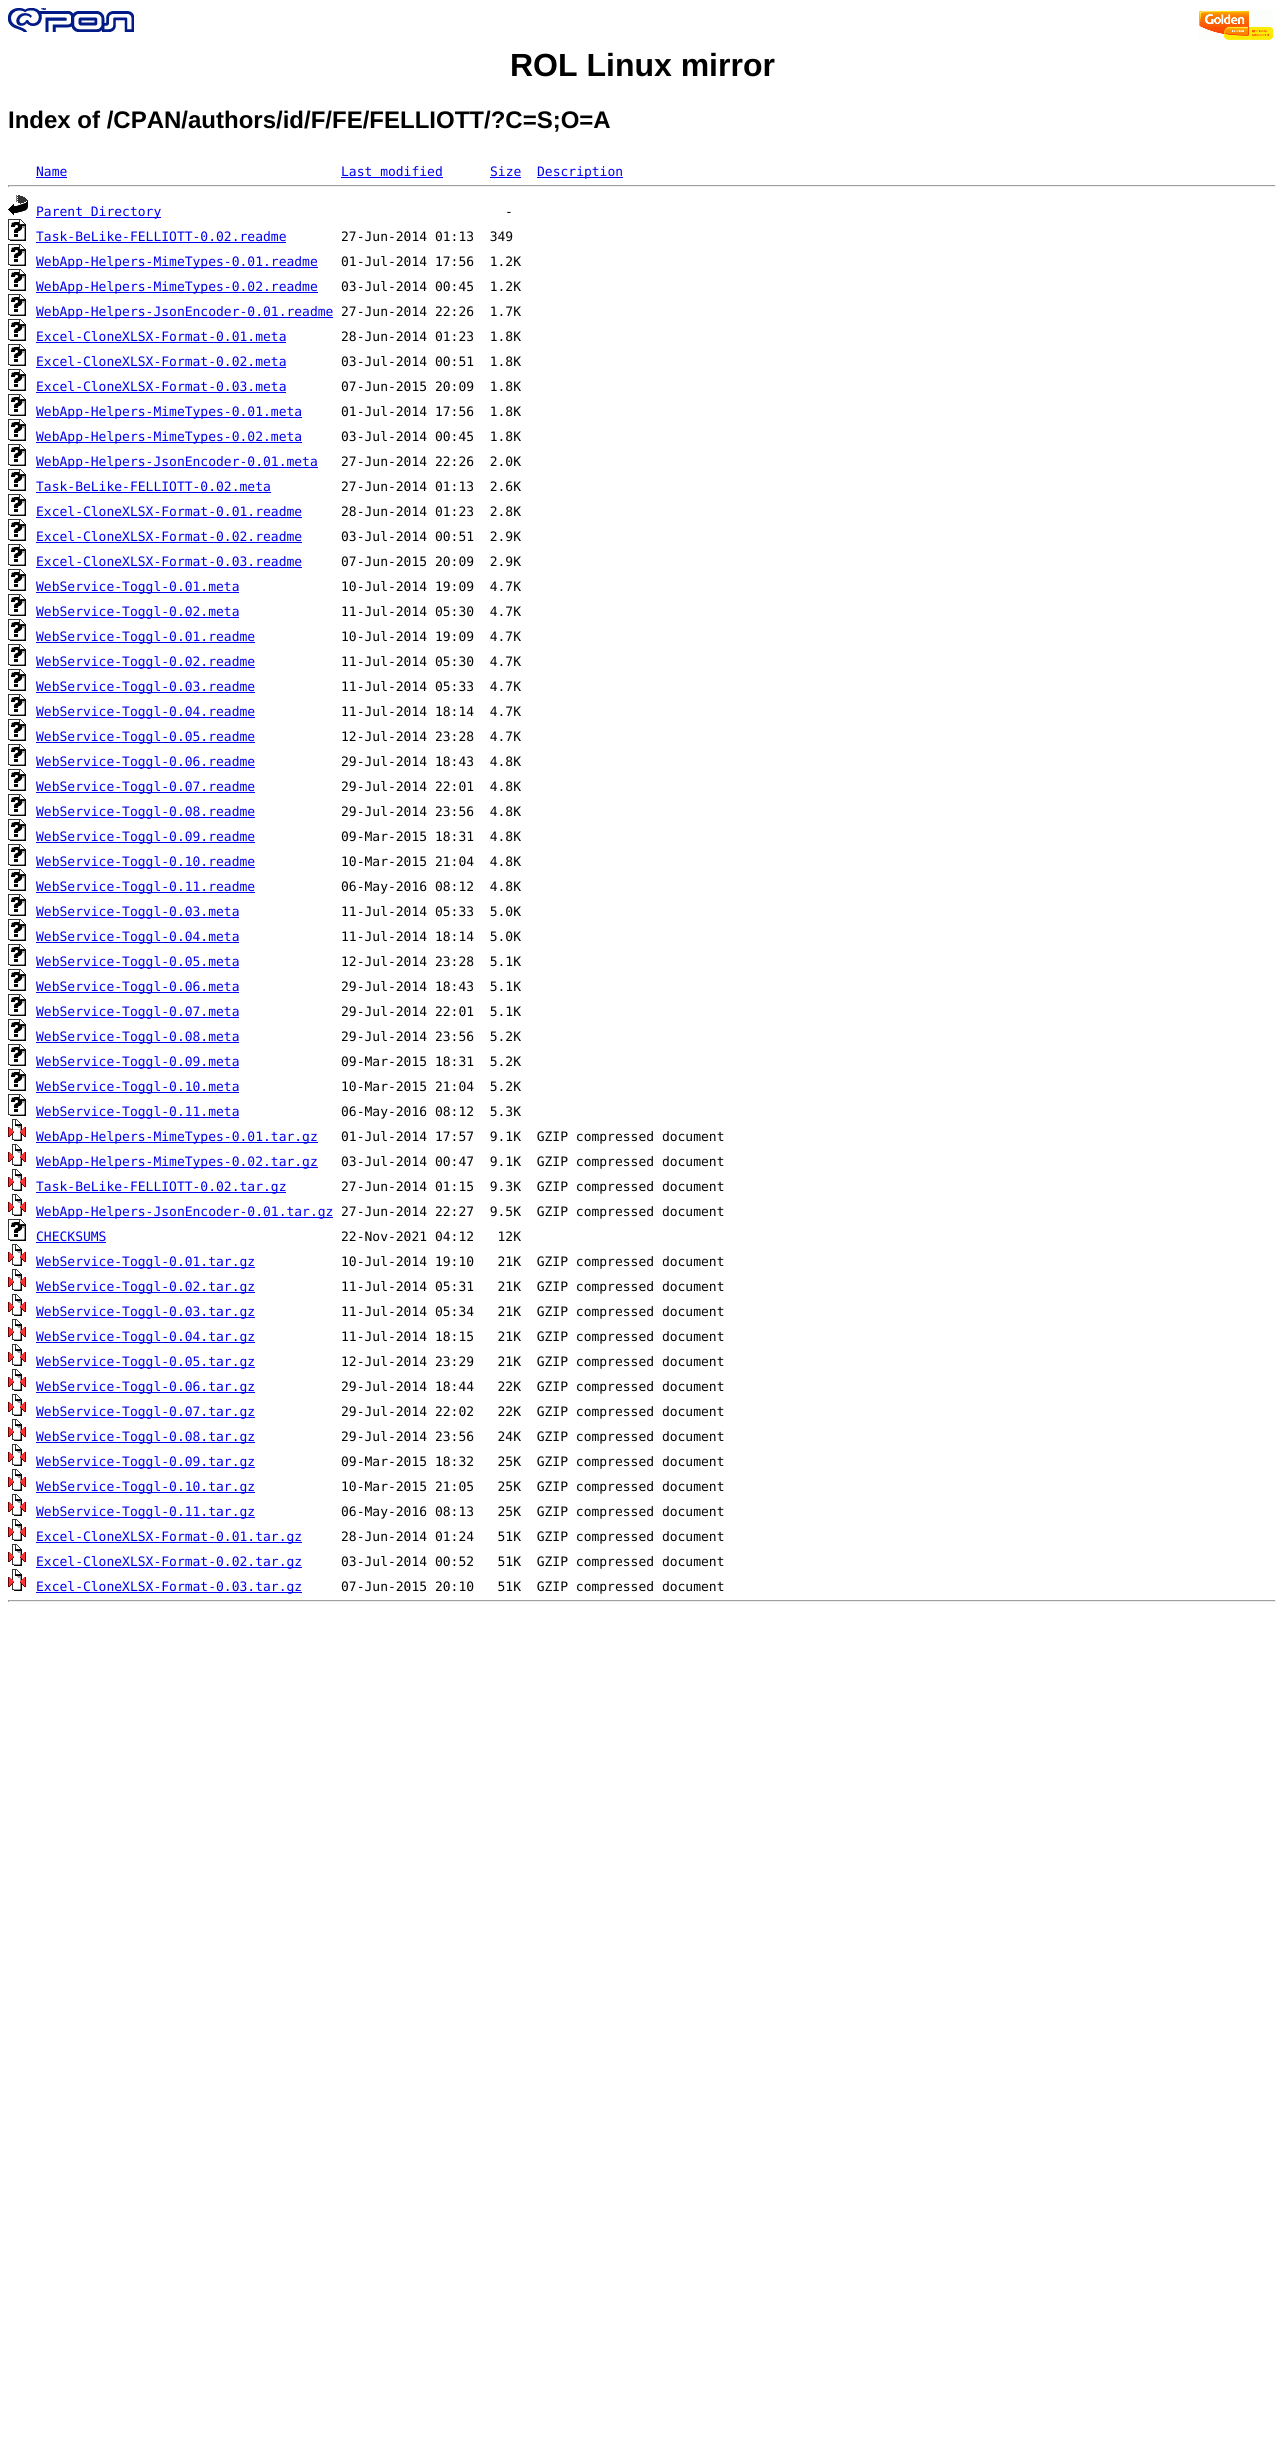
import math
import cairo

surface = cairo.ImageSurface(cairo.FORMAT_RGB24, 1284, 2437)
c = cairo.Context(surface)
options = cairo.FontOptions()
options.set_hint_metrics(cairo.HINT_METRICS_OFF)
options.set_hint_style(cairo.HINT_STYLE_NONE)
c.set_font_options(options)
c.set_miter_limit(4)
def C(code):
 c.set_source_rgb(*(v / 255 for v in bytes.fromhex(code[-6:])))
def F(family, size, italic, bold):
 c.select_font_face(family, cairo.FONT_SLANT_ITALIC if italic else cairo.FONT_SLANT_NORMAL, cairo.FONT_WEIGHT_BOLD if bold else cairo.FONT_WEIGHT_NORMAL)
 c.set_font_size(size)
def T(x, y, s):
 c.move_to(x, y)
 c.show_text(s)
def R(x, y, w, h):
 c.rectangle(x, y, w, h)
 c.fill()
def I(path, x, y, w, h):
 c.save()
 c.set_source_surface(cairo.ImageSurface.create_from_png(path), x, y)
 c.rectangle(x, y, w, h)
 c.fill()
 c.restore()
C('ffffff')
c.paint()
I('1.png',8,8,126,24)
I('2.png',1199,10,74,30)
F('Liberation Sans',32,0,1)
C('000000')
T(510,76,'ROL Linux mirror')
F('Liberation Sans',24,0,1)
T(8,128,'Index of /CPAN/authors/id/F/FE/FELLIOTT/?C=S;O=A')
F('DejaVu Sans Mono',13,0,0)
C('0000ee')
T(36,176,'Name')
R(36,177,31,1)
T(341,176,'Last modified')
R(341,177,102,1)
T(490,176,'Size')
R(490,177,31,1)
R(537,177,86,1)
T(537,176,'Description')
C('9f9f9f')
R(8,185,1268,1)
C('eeeeee')
R(1275,185,1,2)
R(8,186,1268,1)
C('9f9f9f')
R(8,185,1,2)
I('3.png',8,195,20,20)
C('0000ee')
R(36,217,125,1)
T(36,216,'Parent Directory')
C('000000')
T(505,216,'-')
I('4.png',8,219,18,22)
C('0000ee')
T(36,241,'Task-BeLike-FELLIOTT-0.02.readme')
R(36,242,250,1)
C('000000')
T(341,241,'27-Jun-2014 01:13  349')
I('4.png',8,244,18,22)
C('0000ee')
R(36,267,282,1)
T(36,266,'WebApp-Helpers-MimeTypes-0.01.readme')
C('000000')
T(341,266,'01-Jul-2014 17:56  1.2K')
I('4.png',8,269,18,22)
C('0000ee')
R(36,292,282,1)
T(36,291,'WebApp-Helpers-MimeTypes-0.02.readme')
C('000000')
T(341,291,'03-Jul-2014 00:45  1.2K')
I('4.png',8,294,18,22)
C('0000ee')
R(36,317,297,1)
T(36,316,'WebApp-Helpers-JsonEncoder-0.01.readme')
C('000000')
T(341,316,'27-Jun-2014 22:26  1.7K')
I('4.png',8,319,18,22)
C('0000ee')
T(36,341,'Excel-CloneXLSX-Format-0.01.meta')
R(36,342,250,1)
C('000000')
T(341,341,'28-Jun-2014 01:23  1.8K')
I('4.png',8,344,18,22)
C('0000ee')
T(36,366,'Excel-CloneXLSX-Format-0.02.meta')
R(36,367,250,1)
C('000000')
T(341,366,'03-Jul-2014 00:51  1.8K')
I('4.png',8,369,18,22)
C('0000ee')
T(36,391,'Excel-CloneXLSX-Format-0.03.meta')
R(36,392,250,1)
C('000000')
T(341,391,'07-Jun-2015 20:09  1.8K')
I('4.png',8,394,18,22)
C('0000ee')
R(36,417,266,1)
T(36,416,'WebApp-Helpers-MimeTypes-0.01.meta')
C('000000')
T(341,416,'01-Jul-2014 17:56  1.8K')
I('4.png',8,419,18,22)
C('0000ee')
R(36,442,266,1)
T(36,441,'WebApp-Helpers-MimeTypes-0.02.meta')
C('000000')
T(341,441,'03-Jul-2014 00:45  1.8K')
I('4.png',8,444,18,22)
C('0000ee')
R(36,467,282,1)
T(36,466,'WebApp-Helpers-JsonEncoder-0.01.meta')
C('000000')
T(341,466,'27-Jun-2014 22:26  2.0K')
I('4.png',8,469,18,22)
C('0000ee')
T(36,491,'Task-BeLike-FELLIOTT-0.02.meta')
R(36,492,235,1)
C('000000')
T(341,491,'27-Jun-2014 01:13  2.6K')
I('4.png',8,494,18,22)
C('0000ee')
T(36,516,'Excel-CloneXLSX-Format-0.01.readme')
R(36,517,266,1)
C('000000')
T(341,516,'28-Jun-2014 01:23  2.8K')
I('4.png',8,519,18,22)
C('0000ee')
T(36,541,'Excel-CloneXLSX-Format-0.02.readme')
R(36,542,266,1)
C('000000')
T(341,541,'03-Jul-2014 00:51  2.9K')
I('4.png',8,544,18,22)
C('0000ee')
T(36,566,'Excel-CloneXLSX-Format-0.03.readme')
R(36,567,266,1)
C('000000')
T(341,566,'07-Jun-2015 20:09  2.9K')
I('4.png',8,569,18,22)
C('0000ee')
R(36,592,203,1)
T(36,591,'WebService-Toggl-0.01.meta')
C('000000')
T(341,591,'10-Jul-2014 19:09  4.7K')
I('4.png',8,594,18,22)
C('0000ee')
R(36,617,203,1)
T(36,616,'WebService-Toggl-0.02.meta')
C('000000')
T(341,616,'11-Jul-2014 05:30  4.7K')
I('4.png',8,619,18,22)
C('0000ee')
R(36,642,219,1)
T(36,641,'WebService-Toggl-0.01.readme')
C('000000')
T(341,641,'10-Jul-2014 19:09  4.7K')
I('4.png',8,644,18,22)
C('0000ee')
R(36,667,219,1)
T(36,666,'WebService-Toggl-0.02.readme')
C('000000')
T(341,666,'11-Jul-2014 05:30  4.7K')
I('4.png',8,669,18,22)
C('0000ee')
R(36,692,219,1)
T(36,691,'WebService-Toggl-0.03.readme')
C('000000')
T(341,691,'11-Jul-2014 05:33  4.7K')
I('4.png',8,694,18,22)
C('0000ee')
R(36,717,219,1)
T(36,716,'WebService-Toggl-0.04.readme')
C('000000')
T(341,716,'11-Jul-2014 18:14  4.7K')
I('4.png',8,719,18,22)
C('0000ee')
R(36,742,219,1)
T(36,741,'WebService-Toggl-0.05.readme')
C('000000')
T(341,741,'12-Jul-2014 23:28  4.7K')
I('4.png',8,744,18,22)
C('0000ee')
R(36,767,219,1)
T(36,766,'WebService-Toggl-0.06.readme')
C('000000')
T(341,766,'29-Jul-2014 18:43  4.8K')
I('4.png',8,769,18,22)
C('0000ee')
R(36,792,219,1)
T(36,791,'WebService-Toggl-0.07.readme')
C('000000')
T(341,791,'29-Jul-2014 22:01  4.8K')
I('4.png',8,794,18,22)
C('0000ee')
R(36,817,219,1)
T(36,816,'WebService-Toggl-0.08.readme')
C('000000')
T(341,816,'29-Jul-2014 23:56  4.8K')
I('4.png',8,819,18,22)
C('0000ee')
R(36,842,219,1)
T(36,841,'WebService-Toggl-0.09.readme')
C('000000')
T(341,841,'09-Mar-2015 18:31  4.8K')
I('4.png',8,844,18,22)
C('0000ee')
R(36,867,219,1)
T(36,866,'WebService-Toggl-0.10.readme')
C('000000')
T(341,866,'10-Mar-2015 21:04  4.8K')
I('4.png',8,869,18,22)
C('0000ee')
R(36,892,219,1)
T(36,891,'WebService-Toggl-0.11.readme')
C('000000')
T(341,891,'06-May-2016 08:12  4.8K')
I('4.png',8,894,18,22)
C('0000ee')
R(36,917,203,1)
T(36,916,'WebService-Toggl-0.03.meta')
C('000000')
T(341,916,'11-Jul-2014 05:33  5.0K')
I('4.png',8,919,18,22)
C('0000ee')
R(36,942,203,1)
T(36,941,'WebService-Toggl-0.04.meta')
C('000000')
T(341,941,'11-Jul-2014 18:14  5.0K')
I('4.png',8,944,18,22)
C('0000ee')
R(36,967,203,1)
T(36,966,'WebService-Toggl-0.05.meta')
C('000000')
T(341,966,'12-Jul-2014 23:28  5.1K')
I('4.png',8,969,18,22)
C('0000ee')
R(36,992,203,1)
T(36,991,'WebService-Toggl-0.06.meta')
C('000000')
T(341,991,'29-Jul-2014 18:43  5.1K')
I('4.png',8,994,18,22)
C('0000ee')
R(36,1017,203,1)
T(36,1016,'WebService-Toggl-0.07.meta')
C('000000')
T(341,1016,'29-Jul-2014 22:01  5.1K')
I('4.png',8,1019,18,22)
C('0000ee')
R(36,1042,203,1)
T(36,1041,'WebService-Toggl-0.08.meta')
C('000000')
T(341,1041,'29-Jul-2014 23:56  5.2K')
I('4.png',8,1044,18,22)
C('0000ee')
R(36,1067,203,1)
T(36,1066,'WebService-Toggl-0.09.meta')
C('000000')
T(341,1066,'09-Mar-2015 18:31  5.2K')
I('4.png',8,1069,18,22)
C('0000ee')
R(36,1092,203,1)
T(36,1091,'WebService-Toggl-0.10.meta')
C('000000')
T(341,1091,'10-Mar-2015 21:04  5.2K')
I('4.png',8,1094,18,22)
C('0000ee')
R(36,1117,203,1)
T(36,1116,'WebService-Toggl-0.11.meta')
C('000000')
T(341,1116,'06-May-2016 08:12  5.3K')
I('5.png',8,1119,18,22)
C('0000ee')
R(36,1142,282,1)
T(36,1141,'WebApp-Helpers-MimeTypes-0.01.tar.gz')
C('000000')
T(341,1141,'01-Jul-2014 17:57  9.1K  GZIP compressed document')
I('5.png',8,1144,18,22)
C('0000ee')
R(36,1167,282,1)
T(36,1166,'WebApp-Helpers-MimeTypes-0.02.tar.gz')
C('000000')
T(341,1166,'03-Jul-2014 00:47  9.1K  GZIP compressed document')
I('5.png',8,1169,18,22)
C('0000ee')
R(36,1192,250,1)
T(36,1191,'Task-BeLike-FELLIOTT-0.02.tar.gz')
C('000000')
T(341,1191,'27-Jun-2014 01:15  9.3K  GZIP compressed document')
I('5.png',8,1194,18,22)
C('0000ee')
R(36,1217,297,1)
T(36,1216,'WebApp-Helpers-JsonEncoder-0.01.tar.gz')
C('000000')
T(341,1216,'27-Jun-2014 22:27  9.5K  GZIP compressed document')
I('4.png',8,1219,18,22)
C('0000ee')
T(36,1241,'CHECKSUMS')
R(36,1242,70,1)
C('000000')
T(341,1241,'22-Nov-2021 04:12   12K')
I('5.png',8,1244,18,22)
C('0000ee')
R(36,1267,219,1)
T(36,1266,'WebService-Toggl-0.01.tar.gz')
C('000000')
T(341,1266,'10-Jul-2014 19:10   21K  GZIP compressed document')
I('5.png',8,1269,18,22)
C('0000ee')
R(36,1292,219,1)
T(36,1291,'WebService-Toggl-0.02.tar.gz')
C('000000')
T(341,1291,'11-Jul-2014 05:31   21K  GZIP compressed document')
I('5.png',8,1294,18,22)
C('0000ee')
R(36,1317,219,1)
T(36,1316,'WebService-Toggl-0.03.tar.gz')
C('000000')
T(341,1316,'11-Jul-2014 05:34   21K  GZIP compressed document')
I('5.png',8,1319,18,22)
C('0000ee')
R(36,1342,219,1)
T(36,1341,'WebService-Toggl-0.04.tar.gz')
C('000000')
T(341,1341,'11-Jul-2014 18:15   21K  GZIP compressed document')
I('5.png',8,1344,18,22)
C('0000ee')
R(36,1367,219,1)
T(36,1366,'WebService-Toggl-0.05.tar.gz')
C('000000')
T(341,1366,'12-Jul-2014 23:29   21K  GZIP compressed document')
I('5.png',8,1369,18,22)
C('0000ee')
R(36,1392,219,1)
T(36,1391,'WebService-Toggl-0.06.tar.gz')
C('000000')
T(341,1391,'29-Jul-2014 18:44   22K  GZIP compressed document')
I('5.png',8,1394,18,22)
C('0000ee')
R(36,1417,219,1)
T(36,1416,'WebService-Toggl-0.07.tar.gz')
C('000000')
T(341,1416,'29-Jul-2014 22:02   22K  GZIP compressed document')
I('5.png',8,1419,18,22)
C('0000ee')
R(36,1442,219,1)
T(36,1441,'WebService-Toggl-0.08.tar.gz')
C('000000')
T(341,1441,'29-Jul-2014 23:56   24K  GZIP compressed document')
I('5.png',8,1444,18,22)
C('0000ee')
R(36,1467,219,1)
T(36,1466,'WebService-Toggl-0.09.tar.gz')
C('000000')
T(341,1466,'09-Mar-2015 18:32   25K  GZIP compressed document')
I('5.png',8,1469,18,22)
C('0000ee')
R(36,1492,219,1)
T(36,1491,'WebService-Toggl-0.10.tar.gz')
C('000000')
T(341,1491,'10-Mar-2015 21:05   25K  GZIP compressed document')
I('5.png',8,1494,18,22)
C('0000ee')
R(36,1517,219,1)
T(36,1516,'WebService-Toggl-0.11.tar.gz')
C('000000')
T(341,1516,'06-May-2016 08:13   25K  GZIP compressed document')
I('5.png',8,1519,18,22)
C('0000ee')
R(36,1542,266,1)
T(36,1541,'Excel-CloneXLSX-Format-0.01.tar.gz')
C('000000')
T(341,1541,'28-Jun-2014 01:24   51K  GZIP compressed document')
I('5.png',8,1544,18,22)
C('0000ee')
R(36,1567,266,1)
T(36,1566,'Excel-CloneXLSX-Format-0.02.tar.gz')
C('000000')
T(341,1566,'03-Jul-2014 00:52   51K  GZIP compressed document')
I('5.png',8,1569,18,22)
C('0000ee')
R(36,1592,266,1)
T(36,1591,'Excel-CloneXLSX-Format-0.03.tar.gz')
C('000000')
T(341,1591,'07-Jun-2015 20:10   51K  GZIP compressed document')
C('9f9f9f')
R(8,1600,1268,1)
C('eeeeee')
R(1275,1600,1,2)
R(8,1601,1268,1)
C('9f9f9f')
R(8,1600,1,2)
surface.write_to_png('o.png')
